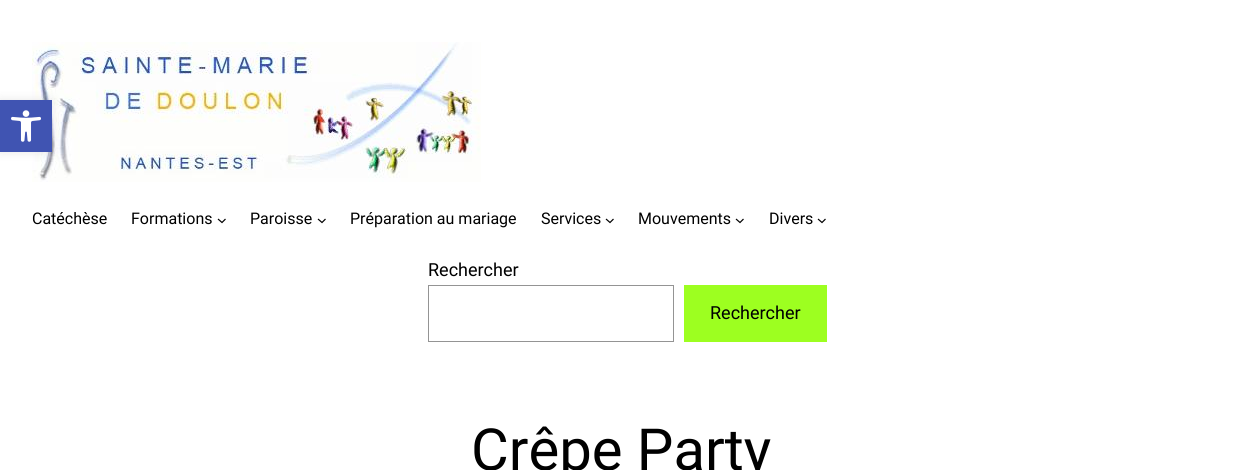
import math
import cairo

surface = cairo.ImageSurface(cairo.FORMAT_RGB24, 1242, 470)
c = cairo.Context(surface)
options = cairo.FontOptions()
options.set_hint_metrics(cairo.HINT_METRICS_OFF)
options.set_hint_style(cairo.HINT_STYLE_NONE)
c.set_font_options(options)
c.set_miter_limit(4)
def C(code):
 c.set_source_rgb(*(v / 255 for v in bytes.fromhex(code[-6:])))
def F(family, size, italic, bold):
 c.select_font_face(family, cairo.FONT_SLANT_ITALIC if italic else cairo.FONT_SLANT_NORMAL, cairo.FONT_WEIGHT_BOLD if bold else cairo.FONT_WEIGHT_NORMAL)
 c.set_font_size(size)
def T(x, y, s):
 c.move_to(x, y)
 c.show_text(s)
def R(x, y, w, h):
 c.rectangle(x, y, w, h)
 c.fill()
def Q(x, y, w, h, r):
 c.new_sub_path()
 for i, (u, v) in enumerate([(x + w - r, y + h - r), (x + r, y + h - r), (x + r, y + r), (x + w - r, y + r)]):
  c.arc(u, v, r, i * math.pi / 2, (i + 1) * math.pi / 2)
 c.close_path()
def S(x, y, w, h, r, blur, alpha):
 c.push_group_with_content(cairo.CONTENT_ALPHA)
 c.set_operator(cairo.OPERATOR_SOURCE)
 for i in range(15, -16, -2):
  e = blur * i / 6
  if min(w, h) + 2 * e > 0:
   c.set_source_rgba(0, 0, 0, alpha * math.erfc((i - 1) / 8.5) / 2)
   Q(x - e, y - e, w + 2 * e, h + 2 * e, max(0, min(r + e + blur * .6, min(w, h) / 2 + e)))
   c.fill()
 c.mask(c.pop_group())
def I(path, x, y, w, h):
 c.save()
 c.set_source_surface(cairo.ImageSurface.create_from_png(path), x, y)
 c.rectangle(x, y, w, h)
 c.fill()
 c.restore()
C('ffffff')
c.paint()
I('2.png',32,42,449,140)
C('000000')
S(0,100,52,52,0,5,.1)
C('4054b2')
R(0,100,52,52)
I('1.png',11,110,30,32)
F('Roboto',16,0,0)
C('000000')
T(32,224,'Catéchèse')
T(131,224,'Formations')
c.new_path()
c.move_to(218,219)
c.line_to(222,222.5)
c.line_to(225.5,219)
c.set_line_width(1.2)
c.stroke()
T(250,224,'Paroisse')
c.new_path()
c.move_to(318,219)
c.line_to(322,222.5)
c.line_to(325.5,219)
c.stroke()
T(350,224,'Préparation au mariage')
T(541,224,'Services')
c.new_path()
c.move_to(606,219)
c.line_to(610,222.5)
c.line_to(613.5,219)
c.stroke()
T(638,224,'Mouvements')
c.new_path()
c.move_to(736,219)
c.line_to(740,222.5)
c.line_to(743.5,219)
c.stroke()
T(769,224,'Divers')
c.new_path()
c.move_to(818,219)
c.line_to(822,222.5)
c.line_to(825.5,219)
c.stroke()
F('Roboto',18,0,0)
T(428,276,'Rechercher')
c.rectangle(428.5,285.5,245,56)
C('949494')
c.set_line_width(1)
c.stroke()
C('9dff20')
R(684,285,143,57)
C('000000')
T(710,319,'Rechercher')
F('Roboto',58,0,0)
T(471,470,'Crêpe Party')
surface.write_to_png('o.png')
